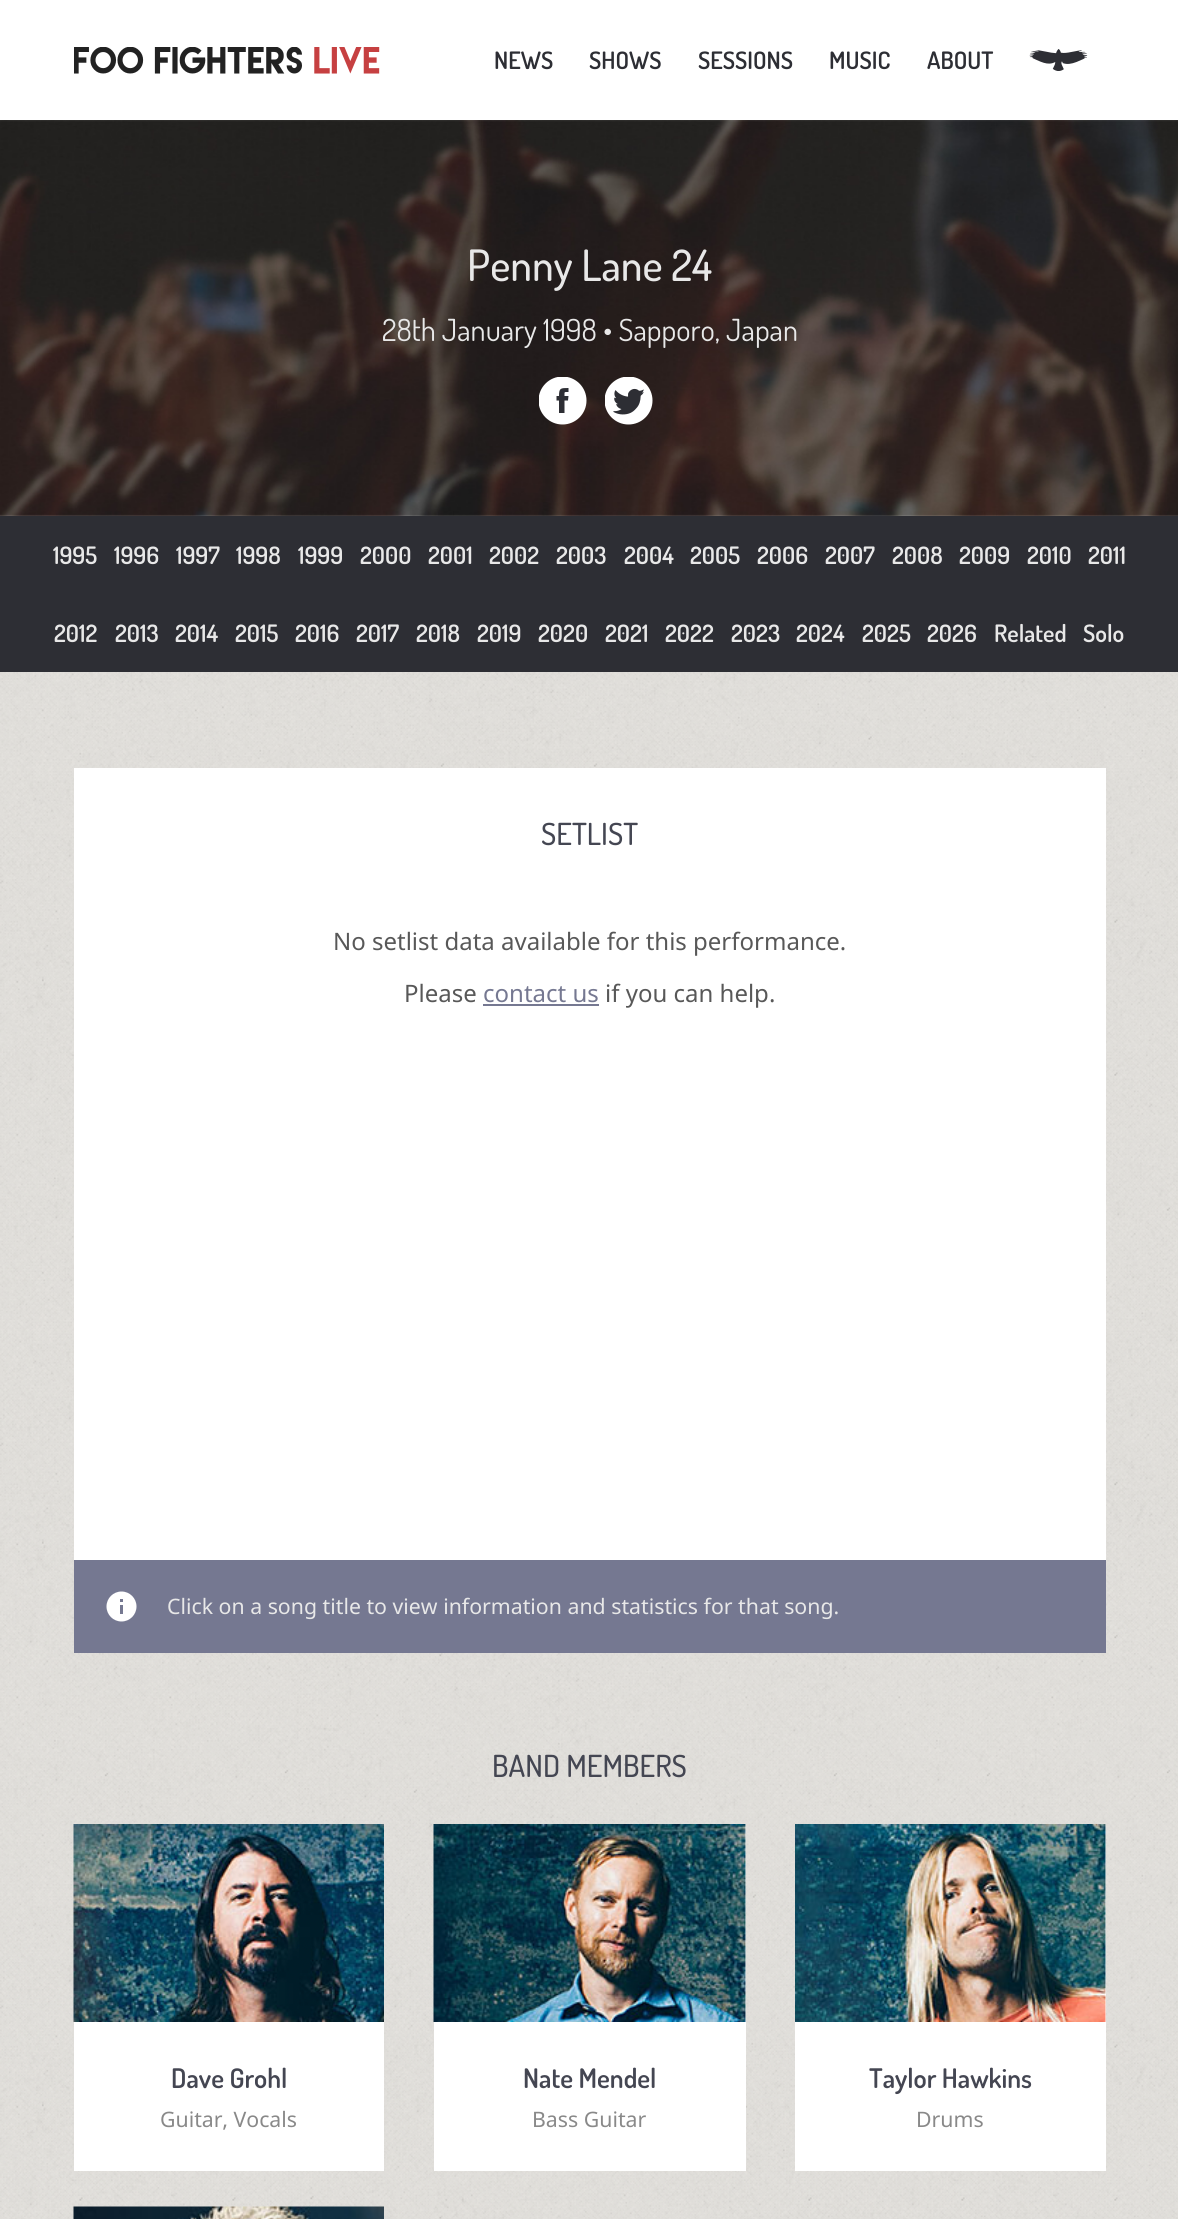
import math
import cairo

surface = cairo.ImageSurface(cairo.FORMAT_RGB24, 1178, 2219)
c = cairo.Context(surface)
options = cairo.FontOptions()
options.set_hint_metrics(cairo.HINT_METRICS_OFF)
options.set_hint_style(cairo.HINT_STYLE_NONE)
c.set_font_options(options)
c.set_miter_limit(4)
def C(code):
 c.set_source_rgb(*(v / 255 for v in bytes.fromhex(code[-6:])))
def F(family, size, italic, bold):
 c.select_font_face(family, cairo.FONT_SLANT_ITALIC if italic else cairo.FONT_SLANT_NORMAL, cairo.FONT_WEIGHT_BOLD if bold else cairo.FONT_WEIGHT_NORMAL)
 c.set_font_size(size)
def T(x, y, s):
 c.move_to(x, y)
 c.show_text(s)
def R(x, y, w, h):
 c.rectangle(x, y, w, h)
 c.fill()
def I(path, x, y, w, h):
 c.save()
 c.set_source_surface(cairo.ImageSurface.create_from_png(path), x, y)
 c.rectangle(x, y, w, h)
 c.fill()
 c.restore()
C('eeeeee')
c.paint()
I('1.png',0,515,1178,1704)
C('ffffff')
R(0,0,1178,120)
I('2.png',74,47,306,27)
F('Dosis SemiBold',24,0,0)
C('2d2e34')
T(494,69,'NEWS')
T(589,69,'SHOWS')
T(698,69,'SESSIONS')
T(829,69,'MUSIC')
T(927,69,'ABOUT')
I('3.png',1029,49,59,22)
I('4.png',0,120,1178,396)
F('Dosis Medium',43.25,0,0)
C('e8e8e8')
T(467,281,'Penny Lane 24')
F('Dosis',30.4,0,0)
T(382,341,'28th January 1998 • Sapporo, Japan')
c.save()
c.rectangle(539,377,48,48)
c.clip()
C('ffffff')
c.arc(562.5,400.5,24,0,2 * math.pi)
c.fill()
c.restore()
C('2d2e34')
c.new_path()
c.move_to(568.5,396)
c.line_to(564.5,396)
c.curve_to(564.5,391.5,564,392,568.5,392)
c.line_to(568.5,388)
c.curve_to(560.5,388,559,388,559,396)
c.line_to(556.5,396)
c.line_to(556.5,400.5)
c.line_to(559,400.5)
c.line_to(559,413)
c.line_to(564.5,413)
c.line_to(564.5,400.5)
c.line_to(568,400.5)
c.close_path()
c.fill()
I('5.png',605,377,48,48)
R(0,516,1178,156)
F('Dosis SemiBold',24,0,0)
C('e8e8e8')
T(53,564,'1995')
T(114,564,'1996')
T(176,564,'1997')
T(236,564,'1998')
T(298,564,'1999')
T(360,564,'2000')
T(428,564,'2001')
T(489,564,'2002')
T(556,564,'2003')
T(624,564,'2004')
T(690,564,'2005')
T(757,564,'2006')
T(825,564,'2007')
T(892,564,'2008')
T(959,564,'2009')
T(1027,564,'2010')
T(1088,564,'2011')
T(54,642,'2012')
T(115,642,'2013')
T(175,642,'2014')
T(235,642,'2015')
T(295,642,'2016')
T(356,642,'2017')
T(416,642,'2018')
T(477,642,'2019')
T(538,642,'2020')
T(605,642,'2021')
T(665,642,'2022')
T(731,642,'2023')
T(796,642,'2024')
T(862,642,'2025')
T(927,642,'2026')
T(994,642,'Related')
T(1083,642,'Solo')
C('ffffff')
R(74,768,1032,792)
F('Dosis Medium',30.4,0,0)
C('444652')
T(541,845,'SETLIST')
F('Noto Sans',24,0,0)
C('585858')
T(333,950,'No setlist data available for this performance.')
T(404,1002,'Please')
C('757891')
T(483,1002,'contact us')
R(483,1004,116,2)
C('585858')
T(605,1002,'if you can help.')
C('757891')
R(74,1560,1032,93)
I('6.png',106,1591,31,31)
F('Noto Sans',21.3,0,0)
C('e8e8e8')
T(167,1614,'Click on a song title to view information and statistics for that song.')
F('Dosis Medium',30.4,0,0)
C('444652')
T(492,1777,'BAND MEMBERS')
C('ffffff')
R(74,2022,310,149)
I('7.png',73,1824,311,198)
F('Dosis SemiBold',27,0,0)
C('444652')
T(171,2088,'Dave Grohl')
F('Noto Sans',21.3,0,0)
C('898989')
T(160,2127,'Guitar, Vocals')
C('ffffff')
R(434,1824,312,347)
I('8.png',433,1824,313,198)
F('Dosis SemiBold',27,0,0)
C('444652')
T(523,2088,'Nate Mendel')
F('Noto Sans',21.3,0,0)
C('898989')
T(532,2127,'Bass Guitar')
C('ffffff')
R(795,1824,311,347)
I('9.png',795,1824,311,198)
F('Dosis SemiBold',27,0,0)
C('444652')
T(869,2088,'Taylor Hawkins')
F('Noto Sans',21.3,0,0)
C('898989')
T(916,2127,'Drums')
I('10.png',73,2206,311,13)
surface.write_to_png('o.png')
